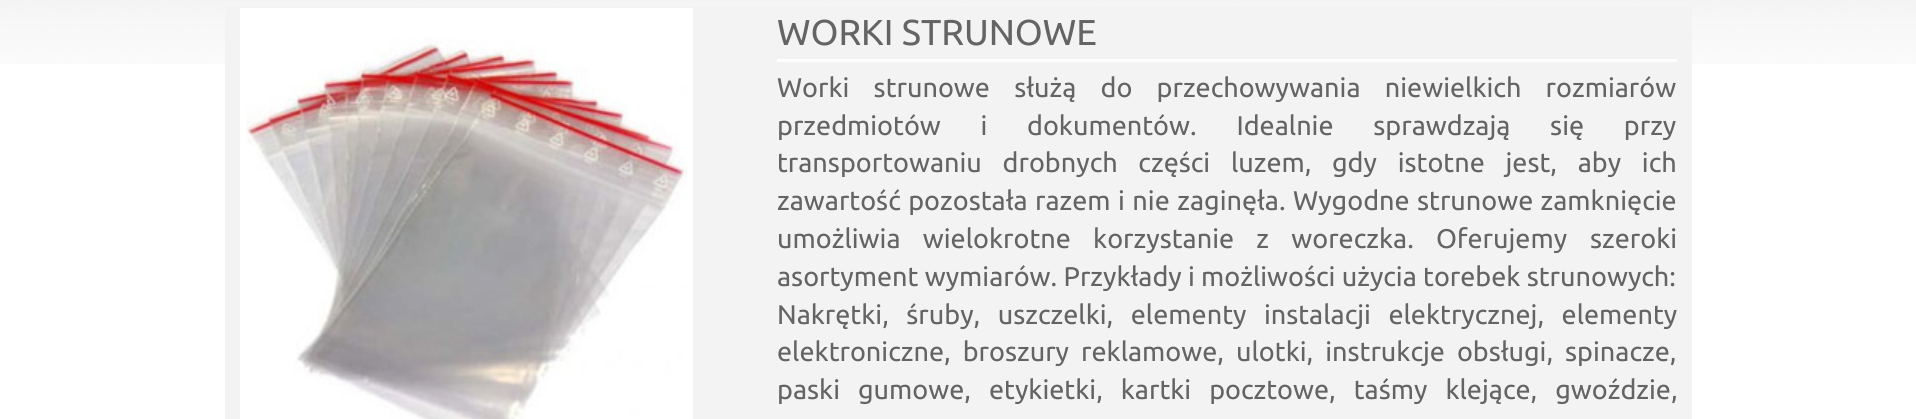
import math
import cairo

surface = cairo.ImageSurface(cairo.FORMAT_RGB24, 1916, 419)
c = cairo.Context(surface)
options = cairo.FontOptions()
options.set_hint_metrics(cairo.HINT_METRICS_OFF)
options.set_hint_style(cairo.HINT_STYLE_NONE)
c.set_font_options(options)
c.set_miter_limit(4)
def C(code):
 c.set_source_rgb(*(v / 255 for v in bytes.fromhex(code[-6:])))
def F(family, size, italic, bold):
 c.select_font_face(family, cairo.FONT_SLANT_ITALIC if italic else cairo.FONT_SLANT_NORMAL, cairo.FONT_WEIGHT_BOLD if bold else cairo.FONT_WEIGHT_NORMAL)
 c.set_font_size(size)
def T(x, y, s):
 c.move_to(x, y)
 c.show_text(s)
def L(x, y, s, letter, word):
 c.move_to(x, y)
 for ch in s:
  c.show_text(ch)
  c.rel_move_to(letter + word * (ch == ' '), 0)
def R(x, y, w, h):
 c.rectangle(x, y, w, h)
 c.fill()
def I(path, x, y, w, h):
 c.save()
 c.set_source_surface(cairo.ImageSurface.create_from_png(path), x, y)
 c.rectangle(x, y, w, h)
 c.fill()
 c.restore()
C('ffffff')
c.paint()
I('1.png',0,0,1916,64)
C('f3f3f3')
R(225,7,1467,412)
c.rectangle(243,11,447,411)
C('ffffff')
c.set_line_width(6)
c.stroke()
I('2.png',246,14,441,405)
R(777,59,900,3)
F('Ubuntu',36,0,0)
C('646464')
T(777,45,'WORKI STRUNOWE')
F('Ubuntu',27,0,0)
L(777,97,'Worki strunowe służą do przechowywania niewielkich rozmiarów',0,18)
L(777,135,'przedmiotów i',0,33.5)
L(1027,135,'dokumentów. Idealnie sprawdzają się przy',0,33.5)
L(777,172,'transportowaniu drobnych części luzem,',0,14.5)
L(1332,172,'gdy istotne jest, aby ich',0,14.5)
L(777,210,'zawartość pozostała razem i nie zaginęła. Wygodne',0,1.25)
L(1417,210,'strunowe zamknięcie',0,1)
L(777,248,'umożliwia wielokrotne korzystanie z woreczka. Oferujemy',0,16)
T(1590,248,'szeroki')
T(777,286,'asortyment wymiarów. Przykłady i możliwości użycia torebek strunowych:')
L(777,324,'Nakrętki, śruby, uszczelki, elementy instalacji elektrycznej, elementy',0,11.25)
L(777,361,'elektroniczne, broszury reklamowe, ulotki, instrukcje obsługi, spinacze,',0,5.75)
T(777,399,'paski')
L(858,399,'gumowe, etykietki, kartki pocztowe, taśmy klejące, gwoździe,',0,11.75)
surface.write_to_png('o.png')
